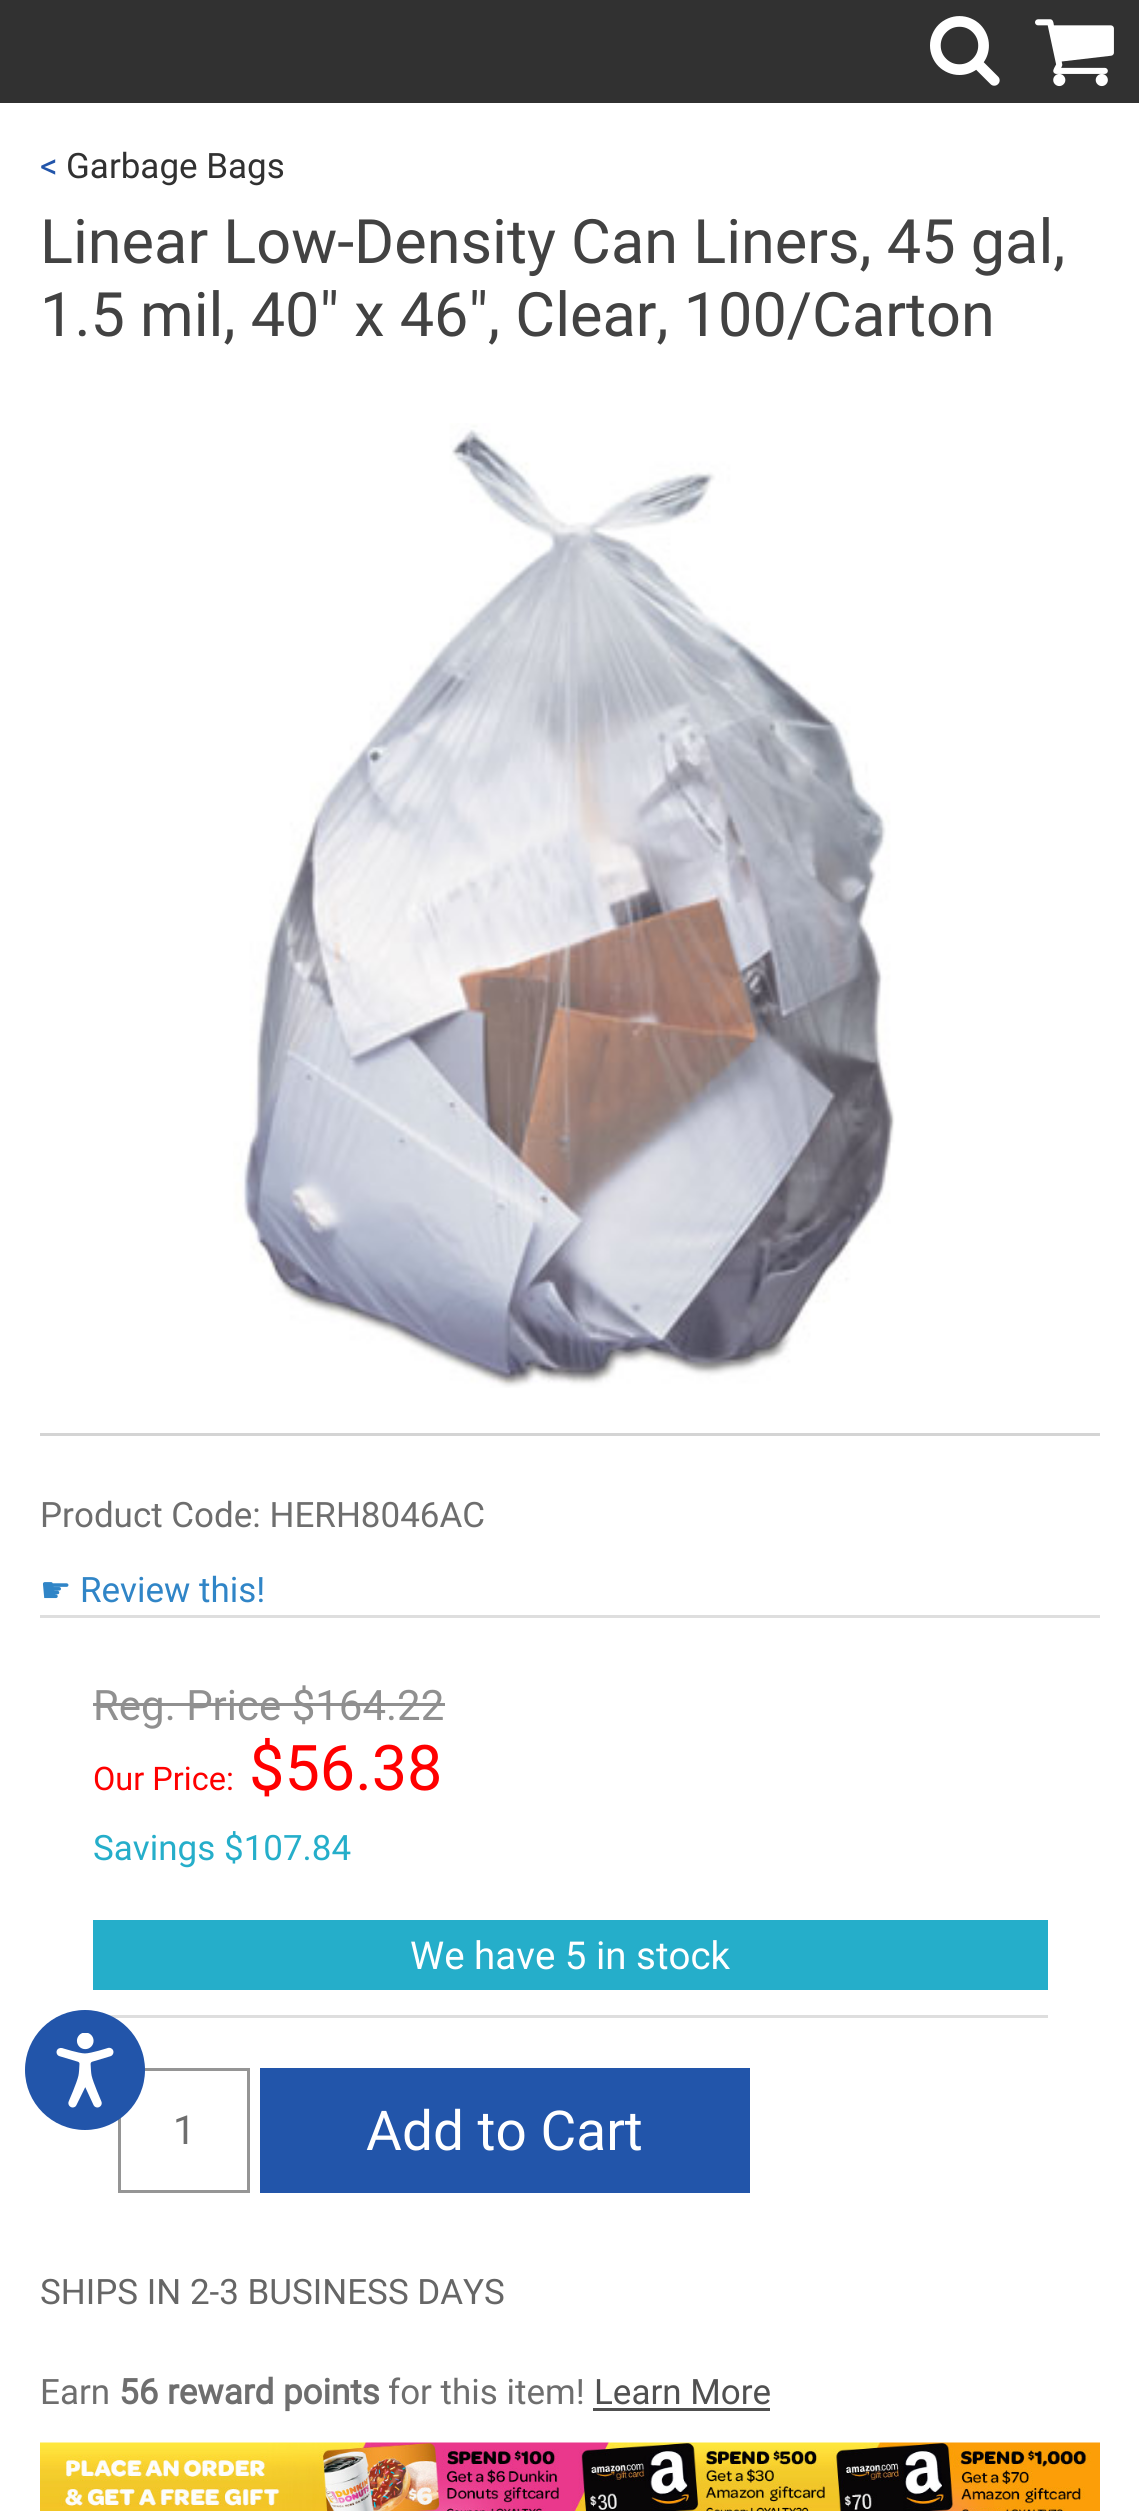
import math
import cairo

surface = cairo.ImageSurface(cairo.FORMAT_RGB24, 1139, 2511)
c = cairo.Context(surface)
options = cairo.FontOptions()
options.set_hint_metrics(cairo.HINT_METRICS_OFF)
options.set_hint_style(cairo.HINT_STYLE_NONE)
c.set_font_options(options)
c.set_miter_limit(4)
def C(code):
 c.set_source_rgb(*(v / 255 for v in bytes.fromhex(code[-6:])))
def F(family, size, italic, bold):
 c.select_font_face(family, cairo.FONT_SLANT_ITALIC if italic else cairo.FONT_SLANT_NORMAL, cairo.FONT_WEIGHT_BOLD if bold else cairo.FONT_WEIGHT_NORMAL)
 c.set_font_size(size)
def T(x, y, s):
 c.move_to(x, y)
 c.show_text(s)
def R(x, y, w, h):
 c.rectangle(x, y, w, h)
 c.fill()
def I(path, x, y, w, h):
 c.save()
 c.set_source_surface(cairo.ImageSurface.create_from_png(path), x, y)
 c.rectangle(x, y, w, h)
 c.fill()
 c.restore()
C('ffffff')
c.paint()
C('313131')
R(0,0,1139,103)
I('1.png',930,16,70,70)
I('2.png',1035,19,79,68)
F('Roboto',35,0,0)
C('2255aa')
T(40,178,'<')
C('313131')
T(66,178,'Garbage Bags')
F('Roboto',61.25,0,0)
C('424242')
T(40,263,'Linear Low-Density Can Liners, 45 gal,')
T(40,336,'1.5 mil, 40" x 46", Clear, 100/Carton')
C('d4d4d4')
R(40,1433,1060,3)
I('3.png',233,423,662,965)
F('Roboto',35,0,0)
C('6e6e6e')
T(40,1527,'Product Code: HERH8046AC')
C('dedede')
R(40,1615,1060,3)
F('DejaVu Sans',35,0,0)
C('3085c7')
T(40,1602,'☛')
F('Roboto',35,0,0)
T(80,1602,'Review this!')
F('Roboto',42,0,0)
C('909090')
T(93,1720,'Reg. Price $164.22')
R(93,1703,352,3)
F('Roboto',32.5,0,0)
C('ff0000')
T(93,1790,'Our Price:')
F('Roboto',63,0,0)
T(249,1790,'$56.38')
F('Roboto',35,0,0)
C('25aeca')
T(93,1860,'Savings')
T(224,1860,'$107.84')
R(93,1920,955,70)
F('Roboto',38.5,0,0)
C('ffffff')
T(410,1969,'We have 5 in stock')
C('dedede')
R(109,2015,939,3)
c.rectangle(119.5,2069.5,129,122)
C('959595')
c.set_line_width(3)
c.stroke()
F('Roboto',40,0,0)
C('6e6e6e')
T(173,2144,'1')
C('2255aa')
R(260,2068,490,125)
F('Roboto',55,0,0)
C('ffffff')
T(366,2150,'Add to Cart')
F('Roboto',35,0,0)
C('666666')
T(40,2304,'SHIPS IN 2-3 BUSINESS DAYS')
C('6e6e6e')
T(40,2404,'Earn')
F('Roboto',35,0,1)
T(119,2404,'56 reward points')
F('Roboto',35,0,0)
T(388,2404,'for this item!')
C('505050')
T(594,2404,'Learn More')
R(593,2408,177,3)
I('4.png',40,2442,1060,69)
C('2255aa')
c.arc(85,2070,60,0,2 * math.pi)
c.fill()
I('5.png',56,2033,58,75)
surface.write_to_png('o.png')
